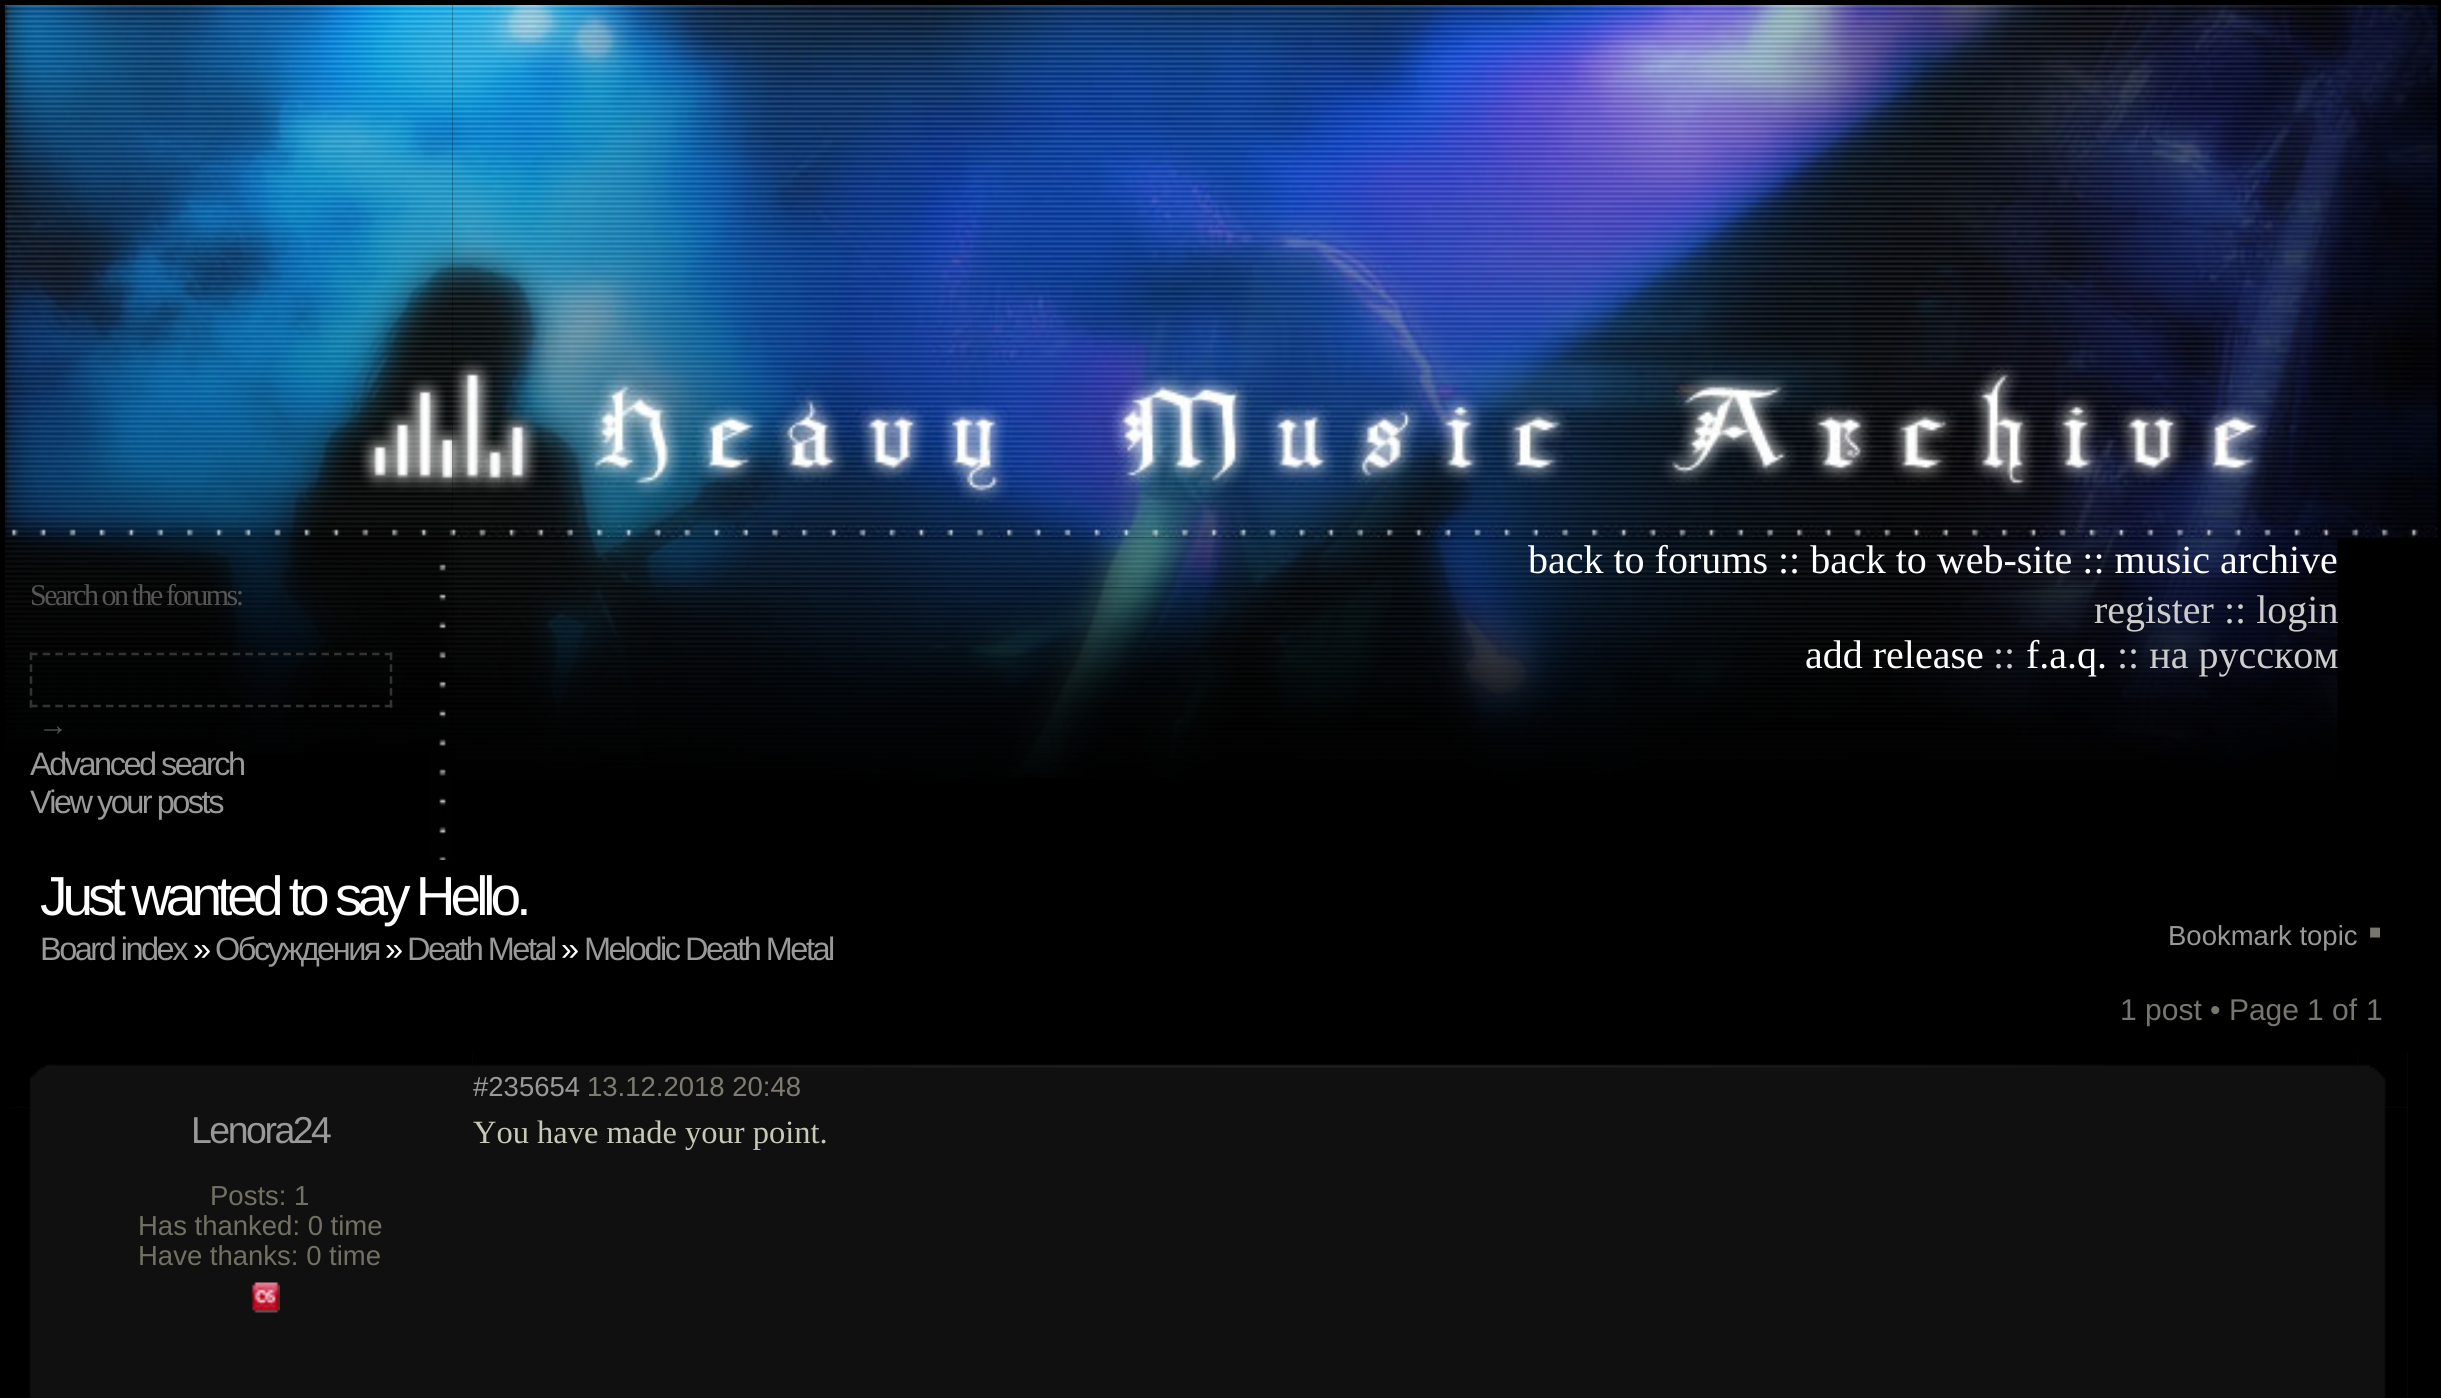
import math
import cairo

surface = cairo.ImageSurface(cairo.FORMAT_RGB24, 2441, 1398)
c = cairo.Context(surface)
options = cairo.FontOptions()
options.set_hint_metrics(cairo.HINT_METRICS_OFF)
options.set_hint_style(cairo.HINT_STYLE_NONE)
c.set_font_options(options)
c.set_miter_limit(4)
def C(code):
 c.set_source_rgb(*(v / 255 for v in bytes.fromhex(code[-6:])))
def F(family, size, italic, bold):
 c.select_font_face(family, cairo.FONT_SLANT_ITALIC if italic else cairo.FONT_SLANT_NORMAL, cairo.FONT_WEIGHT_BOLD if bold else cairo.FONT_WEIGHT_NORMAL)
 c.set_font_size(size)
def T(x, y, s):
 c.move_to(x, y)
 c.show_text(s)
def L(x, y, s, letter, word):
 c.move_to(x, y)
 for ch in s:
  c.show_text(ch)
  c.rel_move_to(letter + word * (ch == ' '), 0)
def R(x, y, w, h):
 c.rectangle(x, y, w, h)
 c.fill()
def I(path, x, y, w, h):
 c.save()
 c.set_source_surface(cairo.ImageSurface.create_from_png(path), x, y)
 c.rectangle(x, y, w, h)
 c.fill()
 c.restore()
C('000000')
c.paint()
I('1.png',5,5,448,533)
I('2.png',452,5,1986,533)
I('3.png',5,537,425,216)
F('Liberation Serif',30,0,0)
C('555555')
L(30,605,'Search on the forums:',-2.5,0)
c.new_path()
c.move_to(30,654)
c.line_to(392.5,654)
C('333333')
c.set_line_width(2.5)
c.set_dash([7.5,5.17])
c.stroke()
c.new_path()
c.move_to(391,652.5)
c.line_to(391,707.5)
c.set_dash([7.5,4.38])
c.stroke()
c.new_path()
c.move_to(30,706)
c.line_to(392.5,706)
c.set_dash([7.5,5.17])
c.stroke()
c.new_path()
c.move_to(31,652.5)
c.line_to(31,707.5)
c.set_dash([7.5,4.38])
c.stroke()
C('555555')
T(38,735,'→')
F('Liberation Sans',32.5,0,0)
C('999999')
L(30,775,'Advanced search',-2.5,0)
L(30,813,'View your posts',-2.5,0)
I('4.png',430,537,23,323)
I('5.png',452,537,1886,51)
F('Liberation Serif',40,0,0)
C('ffffff')
T(1528,573,'back to forums :: back to web-site :: music archive')
I('6.png',452,587,1886,191)
C('cccccc')
T(2094,623,'register :: login')
C('ffffff')
T(1805,668,'add release')
C('cccccc')
T(1993,668,'::')
C('ffffff')
T(2026,668,'f.a.q.')
C('cccccc')
T(2117,668,':: на русском')
F('Liberation Sans',55,0,0)
C('ffffff')
L(40,915,'Just wanted to say Hello.',-5,0)
F('Liberation Sans',32.5,0,0)
C('999999')
L(40,960,'Board index',-2.5,0)
C('ffffff')
L(193,960,'»',-2.5,0)
C('999999')
L(215,960,'Обсуждения',-2.5,0)
C('ffffff')
L(385,960,'»',-2.5,0)
C('999999')
L(407,960,'Death Metal',-2.5,0)
C('ffffff')
L(561,960,'»',-2.5,0)
C('999999')
L(584,960,'Melodic Death Metal',-2.5,0)
F('Liberation Sans',27.5,0,0)
T(2168,945,'Bookmark topic')
F('Liberation Sans',40,0,0)
C('77756f')
T(2368,945,'▪')
F('Liberation Sans',30,0,0)
T(2120,1020,'1 post • Page')
T(2307,1020,'1')
T(2332,1020,'of')
T(2366,1020,'1')
C('101011')
R(10,1053,2398,345)
I('8.png',472,1053,1886,15)
I('10.png',10,1107,21,291)
I('7.png',10,1053,463,55)
F('Liberation Sans',27.5,0,0)
C('999999')
T(473,1096,'#235654')
C('7e7c72')
T(587,1096,'13.12.2018 20:48')
I('12.png',2384,1107,24,291)
I('9.png',2357,1053,51,55)
F('Liberation Sans',37.5,0,0)
C('999999')
L(191,1143,'Lenora24',-2.5,0)
F('Liberation Sans',27.5,0,0)
C('717062')
T(210,1205,'Posts: 1')
T(138,1235,'Has thanked: 0 time')
T(138,1265,'Have thanks: 0 time')
I('11.png',251,1282,29,31)
F('Liberation Serif',32.5,0,0)
C('c8c8b8')
T(473,1143,'You have made your point.')
surface.write_to_png('o.png')
